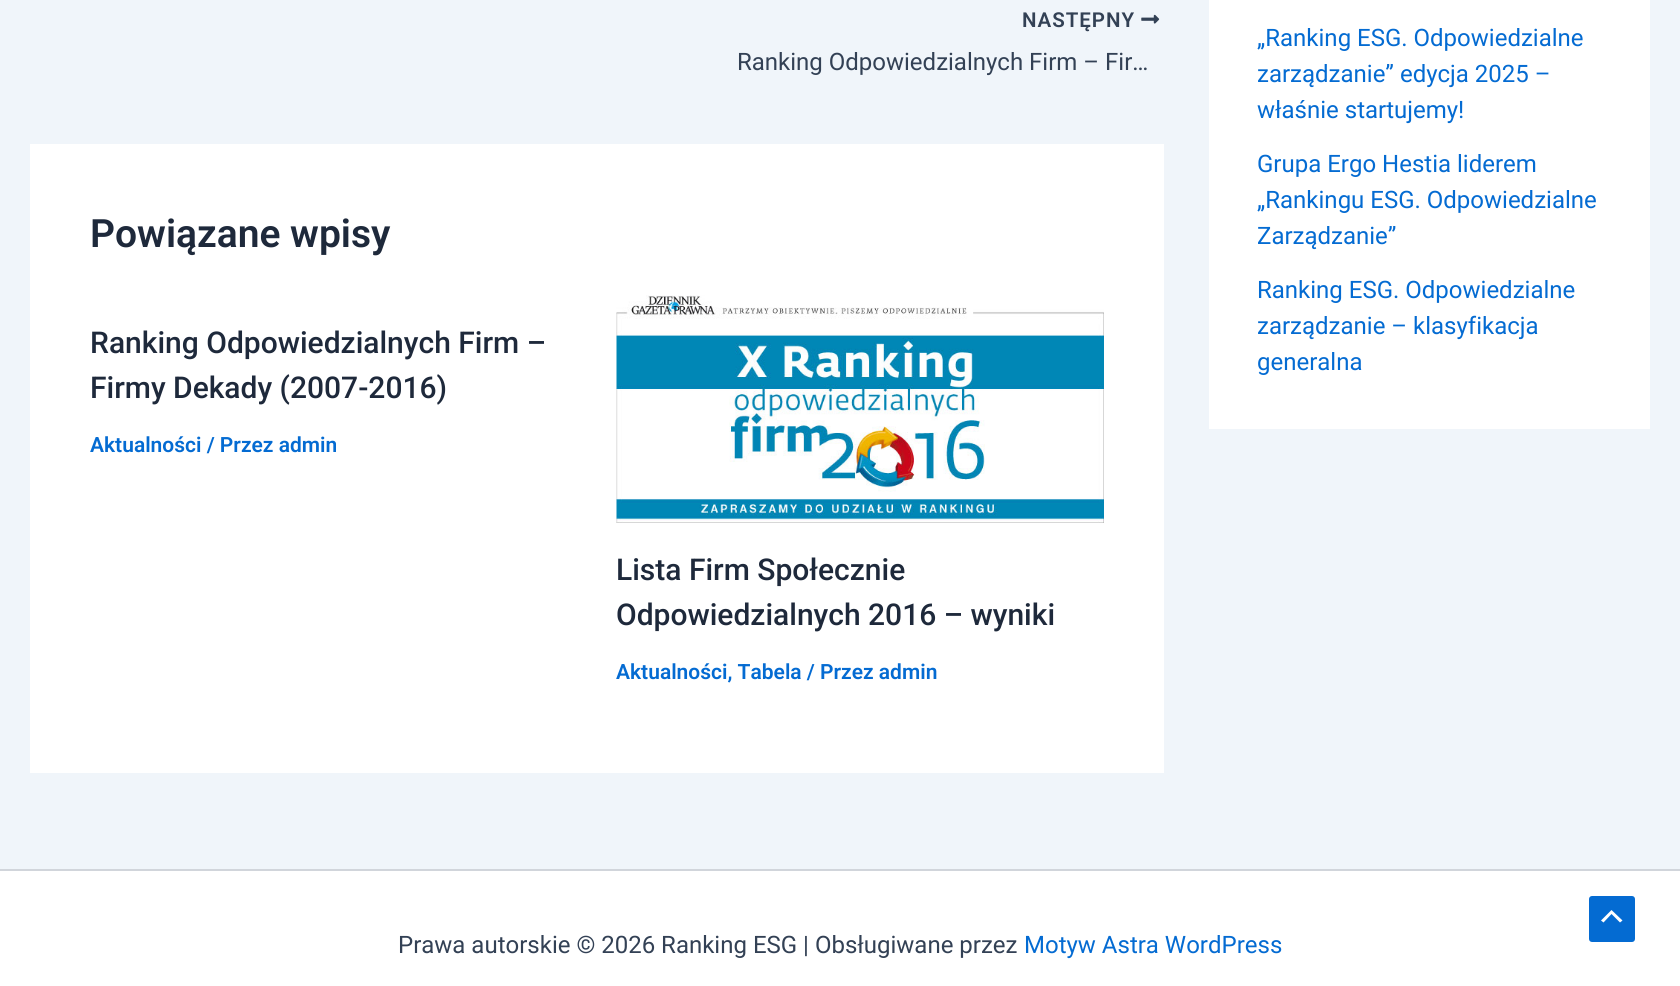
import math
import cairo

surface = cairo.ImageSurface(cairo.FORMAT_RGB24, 1680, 986)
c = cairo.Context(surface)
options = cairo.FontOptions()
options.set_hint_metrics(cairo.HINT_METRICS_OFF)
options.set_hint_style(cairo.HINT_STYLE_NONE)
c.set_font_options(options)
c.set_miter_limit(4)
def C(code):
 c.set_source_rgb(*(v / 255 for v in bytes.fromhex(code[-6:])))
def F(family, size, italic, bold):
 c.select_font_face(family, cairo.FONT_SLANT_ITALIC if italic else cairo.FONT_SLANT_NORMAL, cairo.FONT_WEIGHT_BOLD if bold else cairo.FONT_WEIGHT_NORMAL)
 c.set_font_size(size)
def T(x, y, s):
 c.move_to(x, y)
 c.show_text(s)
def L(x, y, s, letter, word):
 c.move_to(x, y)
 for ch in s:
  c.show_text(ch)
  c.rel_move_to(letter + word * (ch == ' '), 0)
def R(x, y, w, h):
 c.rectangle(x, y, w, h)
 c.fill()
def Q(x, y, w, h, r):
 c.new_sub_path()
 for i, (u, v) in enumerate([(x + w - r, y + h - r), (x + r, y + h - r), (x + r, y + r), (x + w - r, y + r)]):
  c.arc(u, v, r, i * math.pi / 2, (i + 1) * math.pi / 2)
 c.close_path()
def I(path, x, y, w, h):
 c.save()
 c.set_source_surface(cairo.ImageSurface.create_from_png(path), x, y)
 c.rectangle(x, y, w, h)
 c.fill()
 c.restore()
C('f0f5fa')
c.paint()
F('Roboto SemiBold',20.5,0,0)
C('334155')
L(1022,27,'NASTĘPNY',1,0)
I('1.png',1141,14,19,10)
F('Roboto',24,0,0)
T(737,70,'Ranking Odpowiedzialnych Firm – Fir…')
C('ffffff')
R(30,144,1134,629)
F('Roboto SemiBold',39,0,0)
C('1e293b')
T(90,247,'Powiązane wpisy')
F('Roboto Medium',30,0,0)
T(90,353,'Ranking Odpowiedzialnych Firm –')
T(90,398,'Firmy Dekady (2007-2016)')
F('Roboto SemiBold',21,0,0)
C('046bd2')
T(90,452,'Aktualności / Przez admin')
I('2.png',616,295,488,228)
F('Roboto Medium',30,0,0)
C('1e293b')
T(616,580,'Lista Firm Społecznie')
T(616,625,'Odpowiedzialnych 2016 – wyniki')
F('Roboto SemiBold',21,0,0)
C('046bd2')
T(616,679,'Aktualności, Tabela / Przez admin')
C('ffffff')
R(1209,0,441,429)
F('Roboto',24,0,0)
C('046bd2')
T(1257,46,'„Ranking ESG. Odpowiedzialne')
T(1257,82,'zarządzanie” edycja 2025 –')
T(1257,118,'właśnie startujemy!')
T(1257,172,'Grupa Ergo Hestia liderem')
T(1257,208,'„Rankingu ESG. Odpowiedzialne')
T(1257,244,'Zarządzanie”')
T(1257,298,'Ranking ESG. Odpowiedzialne')
T(1257,334,'zarządzanie – klasyfikacja')
T(1257,370,'generalna')
C('ffffff')
R(0,871,1680,115)
C('d1d5db')
R(0,869,1680,2)
C('334155')
T(398,953,'Prawa autorskie © 2026 Ranking ESG | Obsługiwane przez')
C('046bd2')
T(1024,953,'Motyw Astra WordPress')
Q(1589,896,46,46,3)
c.fill()
C('ffffff')
c.new_path()
c.move_to(1622.5,920.5)
c.line_to(1611.5,910)
c.line_to(1601,920.5)
c.line_to(1603.5,922.5)
c.line_to(1611.5,914)
c.line_to(1620,922.5)
c.close_path()
c.fill()
surface.write_to_png('o.png')
